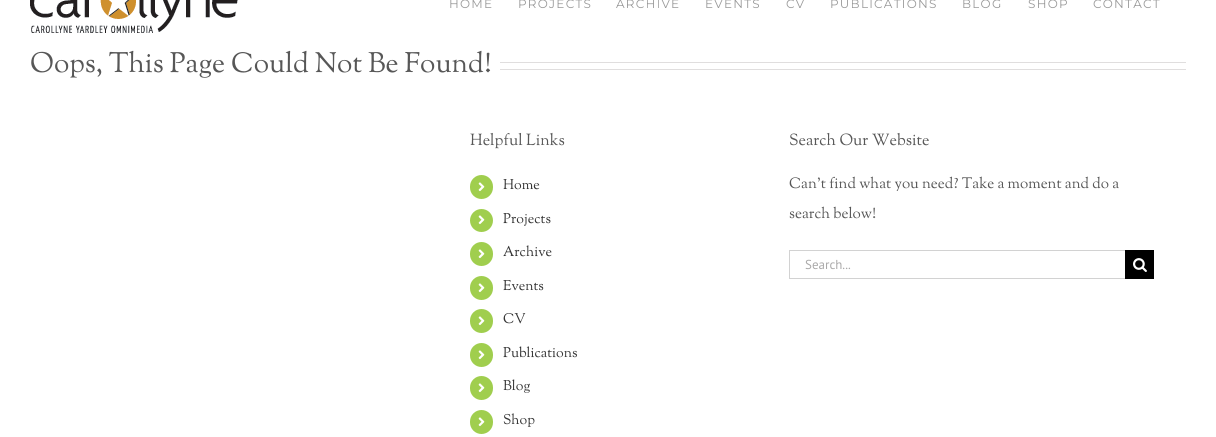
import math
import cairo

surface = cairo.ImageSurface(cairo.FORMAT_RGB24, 1216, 437)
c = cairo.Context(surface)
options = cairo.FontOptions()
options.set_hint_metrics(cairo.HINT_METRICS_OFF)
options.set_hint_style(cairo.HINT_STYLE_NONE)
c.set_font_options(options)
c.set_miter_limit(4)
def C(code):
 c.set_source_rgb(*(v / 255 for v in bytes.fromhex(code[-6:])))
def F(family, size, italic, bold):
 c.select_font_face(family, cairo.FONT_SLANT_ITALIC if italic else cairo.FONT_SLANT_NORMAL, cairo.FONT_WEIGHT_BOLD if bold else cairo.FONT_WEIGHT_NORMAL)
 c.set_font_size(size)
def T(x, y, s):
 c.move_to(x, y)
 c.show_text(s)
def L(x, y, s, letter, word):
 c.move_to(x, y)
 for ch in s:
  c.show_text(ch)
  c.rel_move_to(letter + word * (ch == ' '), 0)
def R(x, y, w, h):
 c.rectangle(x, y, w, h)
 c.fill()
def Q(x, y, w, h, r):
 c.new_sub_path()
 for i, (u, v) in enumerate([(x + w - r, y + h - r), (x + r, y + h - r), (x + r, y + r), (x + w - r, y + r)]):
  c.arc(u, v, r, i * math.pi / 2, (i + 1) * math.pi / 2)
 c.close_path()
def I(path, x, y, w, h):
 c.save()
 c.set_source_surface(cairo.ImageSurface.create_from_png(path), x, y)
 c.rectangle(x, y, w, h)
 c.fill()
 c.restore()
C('ffffff')
c.paint()
I('1.png',30,0,208,33)
F('Montserrat Thin',12,0,0)
C('999999')
L(449,8,'HOME',1.25,0)
L(518,8,'PROJECTS',1.25,0)
L(616,8,'ARCHIVE',1.25,0)
L(705,8,'EVENTS',1.25,0)
L(786,8,'CV',1.25,0)
L(830,8,'PUBLICATIONS',1.25,0)
L(962,8,'BLOG',1.25,0)
L(1028,8,'SHOP',1.25,0)
L(1093,8,'CONTACT',1.25,0)
F('Sorts Mill Goudy',28,0,0)
C('575757')
T(30,72,'Oops, This Page Could Not Be Found!')
C('e0dede')
R(500,62,686,1)
R(500,69,686,1)
F('Sorts Mill Goudy',16,0,0)
C('575757')
T(470,145,'Helpful Links')
C('a0ce4e')
Q(470,175,23,24,11.5)
c.fill()
I('2.png',478,182,7,10)
F('Sorts Mill Goudy',14,0,0)
C('333333')
T(503,189,'Home')
C('a0ce4e')
c.new_path()
c.arc(481.5,220.5,11.5,0,2 * math.pi)
c.fill()
I('2.png',478,215,7,10)
C('333333')
T(503,223,'Projects')
C('a0ce4e')
Q(470,242,23,24,11.5)
c.fill()
I('2.png',478,249,7,10)
C('333333')
T(503,256,'Archive')
C('a0ce4e')
Q(470,276,23,24,11.5)
c.fill()
I('2.png',478,283,7,10)
C('333333')
T(503,290,'Events')
C('a0ce4e')
Q(470,309,23,24,11.5)
c.fill()
I('2.png',478,316,7,10)
C('333333')
T(503,323,'CV')
C('a0ce4e')
Q(470,343,23,24,11.5)
c.fill()
I('2.png',478,350,7,10)
C('333333')
T(503,357,'Publications')
C('a0ce4e')
Q(470,376,23,24,11.5)
c.fill()
I('2.png',478,383,7,10)
C('333333')
T(503,390,'Blog')
C('a0ce4e')
Q(470,410,23,24,11.5)
c.fill()
I('2.png',478,417,7,10)
C('333333')
T(503,424,'Shop')
F('Sorts Mill Goudy',16,0,0)
C('575757')
T(789,145,'Search Our Website')
F('Sorts Mill Goudy',15,0,0)
T(789,188,'Can\'t find what you need? Take a moment and do a')
T(789,218,'search below!')
C('d2d2d2')
R(789,250,336,1)
R(789,278,336,1)
R(789,250,1,29)
F('PT Sans',13,0,0)
C('aaa9a9')
T(805,269,'Search...')
C('000000')
R(1125,250,29,29)
I('3.png',1133,258,14,14)
surface.write_to_png('o.png')
